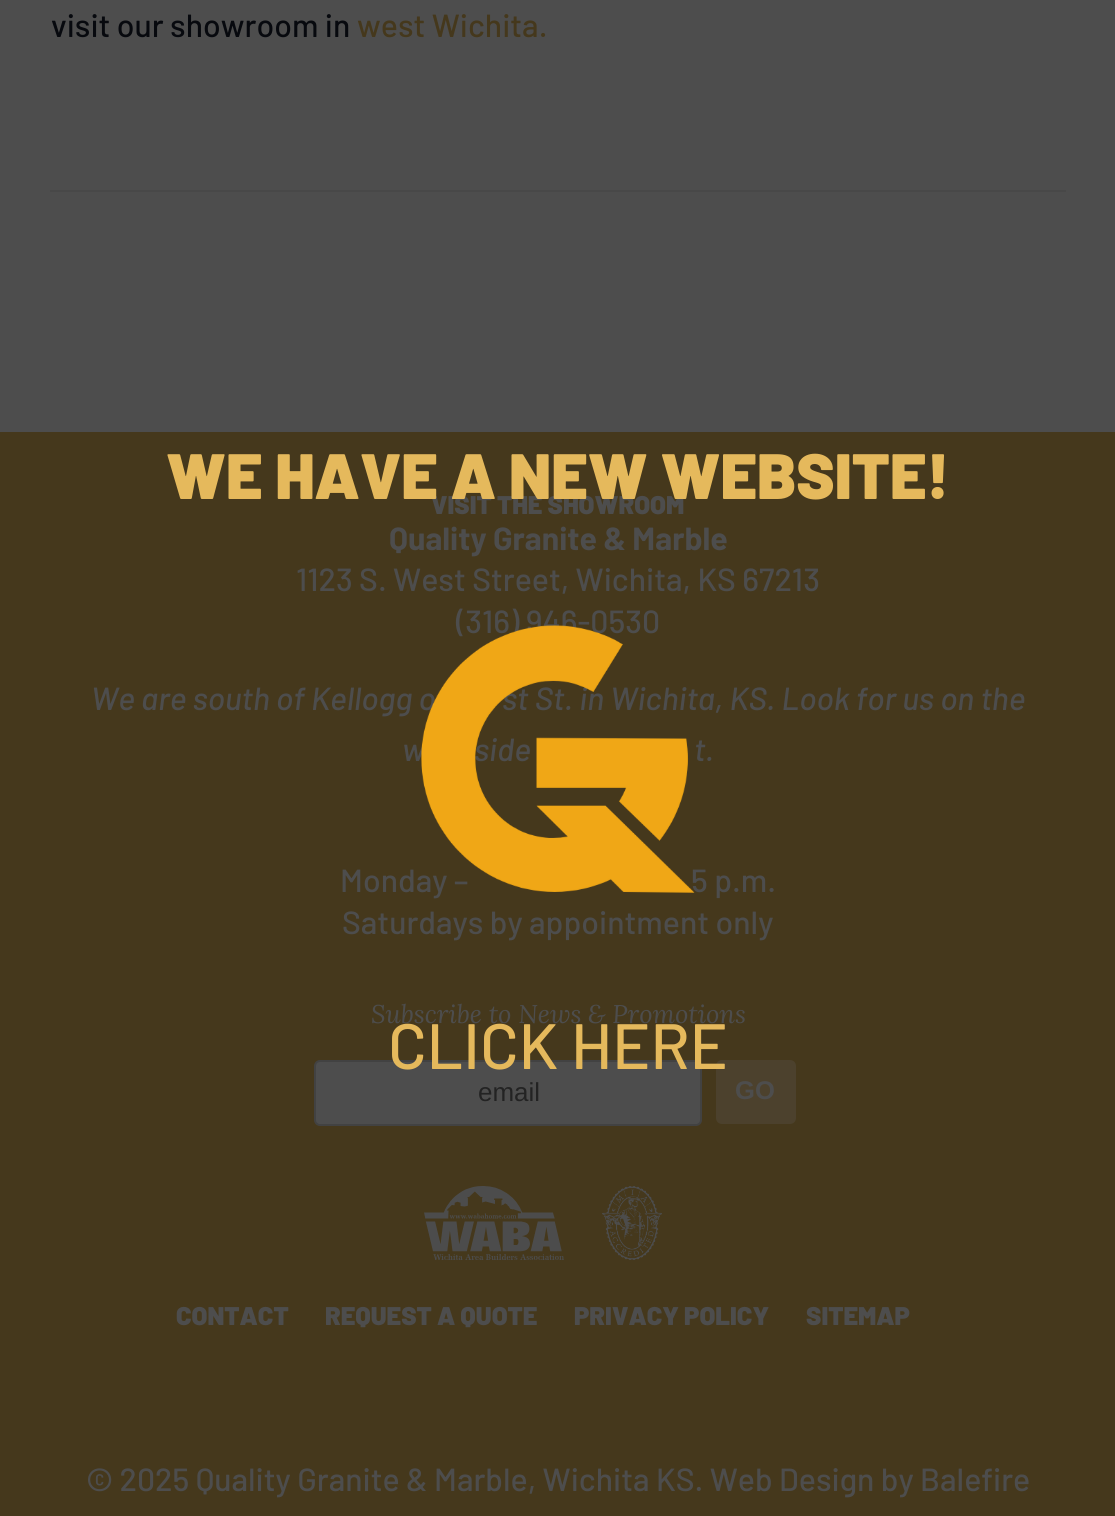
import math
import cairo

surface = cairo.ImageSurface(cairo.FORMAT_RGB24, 1115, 1516)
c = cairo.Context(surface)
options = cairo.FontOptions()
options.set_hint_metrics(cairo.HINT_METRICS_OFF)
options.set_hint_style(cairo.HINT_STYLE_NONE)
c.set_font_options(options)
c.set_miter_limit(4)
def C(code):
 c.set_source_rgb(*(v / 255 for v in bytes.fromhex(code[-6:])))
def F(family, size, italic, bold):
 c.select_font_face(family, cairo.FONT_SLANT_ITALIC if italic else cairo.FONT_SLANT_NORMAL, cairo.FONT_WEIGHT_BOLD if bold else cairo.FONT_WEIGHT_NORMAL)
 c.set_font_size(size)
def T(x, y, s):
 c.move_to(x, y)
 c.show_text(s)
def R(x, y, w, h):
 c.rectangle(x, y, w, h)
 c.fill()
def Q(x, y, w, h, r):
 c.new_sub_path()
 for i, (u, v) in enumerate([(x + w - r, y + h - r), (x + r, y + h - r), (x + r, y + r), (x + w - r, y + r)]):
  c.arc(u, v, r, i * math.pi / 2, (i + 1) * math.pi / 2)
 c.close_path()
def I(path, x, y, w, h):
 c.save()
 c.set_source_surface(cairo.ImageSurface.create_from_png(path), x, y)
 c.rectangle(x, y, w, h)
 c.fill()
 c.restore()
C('4d4d4d')
c.paint()
C('484848')
R(50,190,1016,2)
F('Barlow Medium',32,0,0)
C('07090e')
T(51,37,'visit our showroom in')
C('45381c')
T(357,37,'west Wichita.')
R(0,432,1115,1084)
F('Barlow Black',25.6,0,0)
C('4d4d4d')
T(431,514,'VISIT THE SHOWROOM')
F('Barlow',32,0,1)
T(389,550,'Quality Granite & Marble')
F('Barlow Medium',32,0,0)
T(296,591,'1123 S. West Street, Wichita, KS 67213')
T(456,633,'(316) 946-0530')
F('Barlow Medium',32,1,0)
T(91,710,'We are south of Kellogg o')
T(502,710,'st St. in Wichita, KS. Look for us on the')
T(402,761,'w')
T(474,761,'side')
T(694,761,'t.')
F('Barlow Medium',32,0,0)
T(340,892,'Monday –')
T(691,892,'5 p.m.')
T(342,934,'Saturdays by appointment only')
F('Lora',25.6,1,0)
T(371,1023,'Subscribe to News & Promotions')
Q(315,1061,386,64,5)
c.fill_preserve()
C('424242')
c.stroke()
F('Liberation Sans',26,0,0)
C('232323')
T(478,1101,'email')
C('4c412d')
Q(716,1060,80,64,6)
c.fill()
F('Liberation Sans',25.6,0,1)
C('4d4d4d')
T(735,1099,'GO')
I('1.png',424,1186,140,74)
I('2.png',602,1186,60,74)
F('Barlow Black',25.6,0,0)
T(176,1325,'CONTACT')
T(325,1325,'REQUEST A QUOTE')
T(574,1325,'PRIVACY POLICY')
T(806,1325,'SITEMAP')
F('Barlow Medium',32,0,0)
T(86,1491,'© 2025 Quality Granite & Marble, Wichita KS. Web Design by Balefire')
F('Barlow Black',64,0,0)
C('e5b95c')
T(166,499,'WE HAVE A NEW WEBSITE!')
I('3.png',421,625,274,268)
F('Barlow Medium',64,0,0)
T(388,1069,'CLICK HERE')
surface.write_to_png('o.png')
